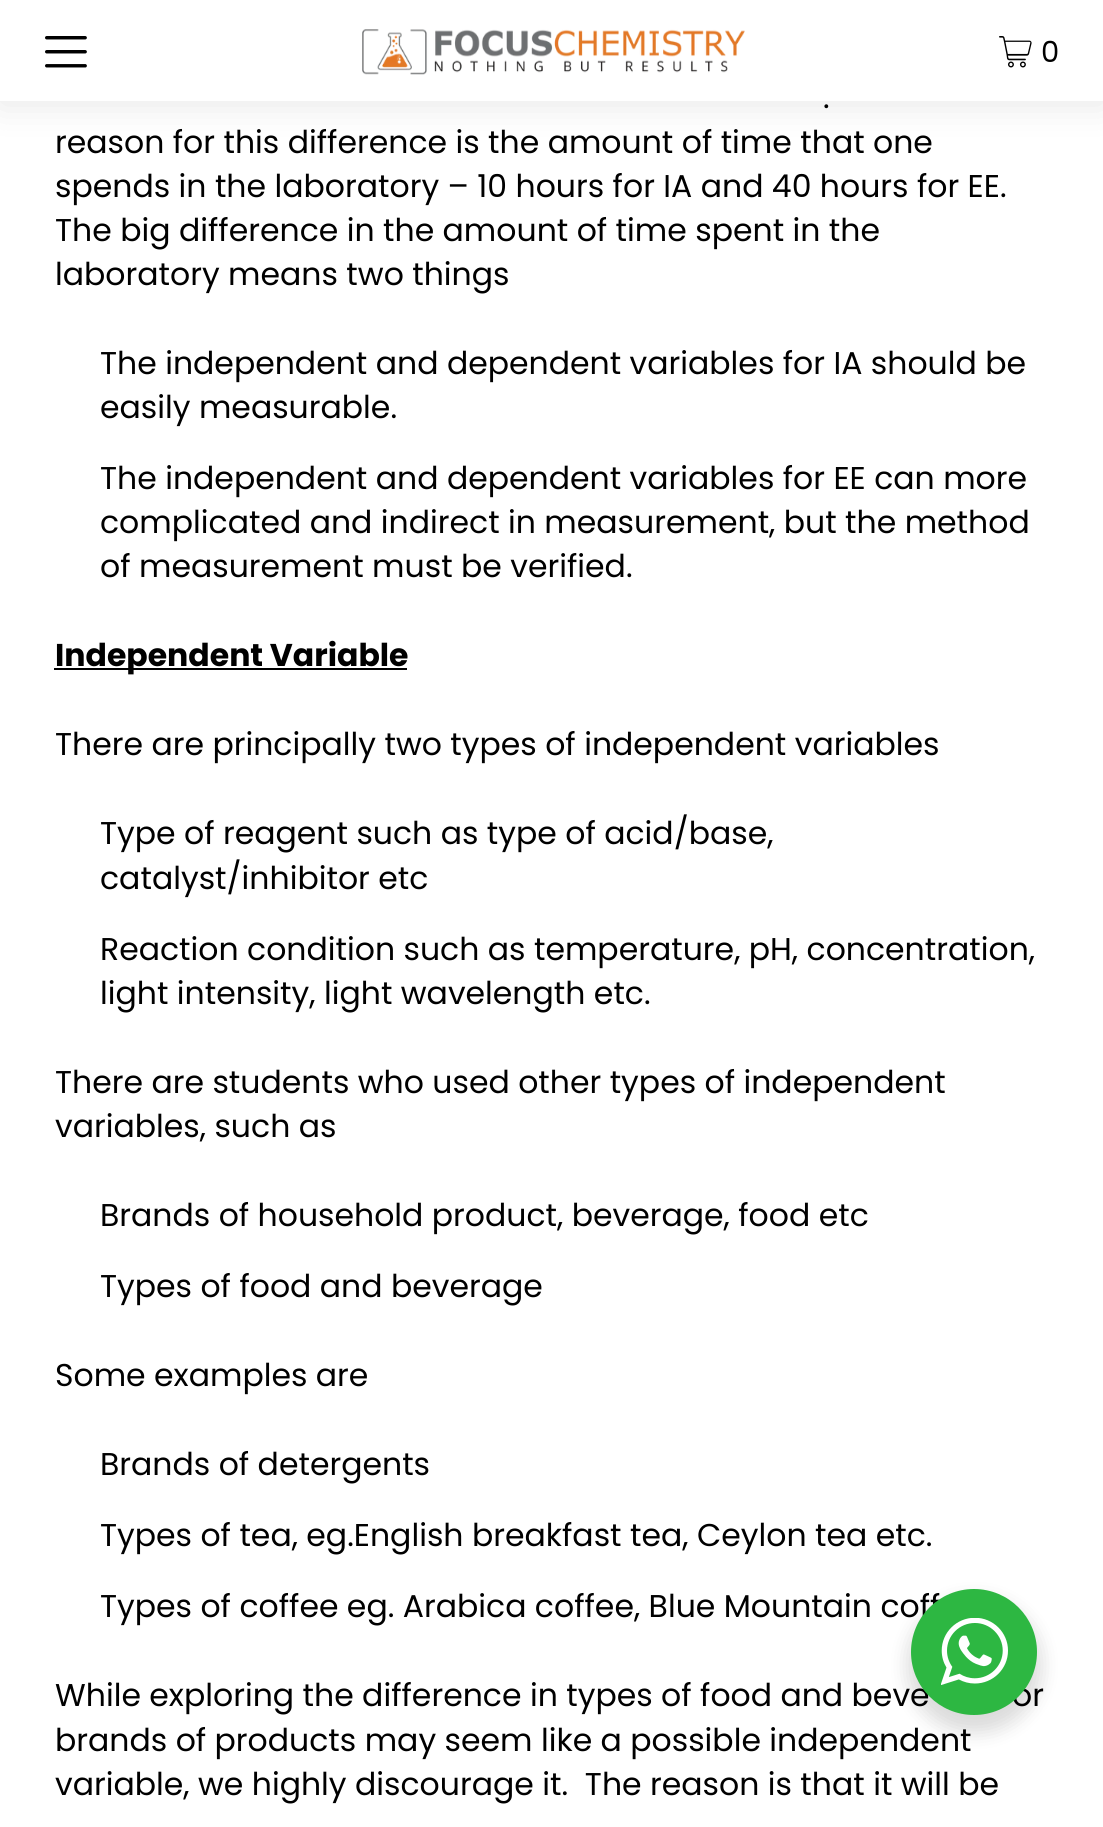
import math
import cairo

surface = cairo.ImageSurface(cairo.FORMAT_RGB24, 1103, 1827)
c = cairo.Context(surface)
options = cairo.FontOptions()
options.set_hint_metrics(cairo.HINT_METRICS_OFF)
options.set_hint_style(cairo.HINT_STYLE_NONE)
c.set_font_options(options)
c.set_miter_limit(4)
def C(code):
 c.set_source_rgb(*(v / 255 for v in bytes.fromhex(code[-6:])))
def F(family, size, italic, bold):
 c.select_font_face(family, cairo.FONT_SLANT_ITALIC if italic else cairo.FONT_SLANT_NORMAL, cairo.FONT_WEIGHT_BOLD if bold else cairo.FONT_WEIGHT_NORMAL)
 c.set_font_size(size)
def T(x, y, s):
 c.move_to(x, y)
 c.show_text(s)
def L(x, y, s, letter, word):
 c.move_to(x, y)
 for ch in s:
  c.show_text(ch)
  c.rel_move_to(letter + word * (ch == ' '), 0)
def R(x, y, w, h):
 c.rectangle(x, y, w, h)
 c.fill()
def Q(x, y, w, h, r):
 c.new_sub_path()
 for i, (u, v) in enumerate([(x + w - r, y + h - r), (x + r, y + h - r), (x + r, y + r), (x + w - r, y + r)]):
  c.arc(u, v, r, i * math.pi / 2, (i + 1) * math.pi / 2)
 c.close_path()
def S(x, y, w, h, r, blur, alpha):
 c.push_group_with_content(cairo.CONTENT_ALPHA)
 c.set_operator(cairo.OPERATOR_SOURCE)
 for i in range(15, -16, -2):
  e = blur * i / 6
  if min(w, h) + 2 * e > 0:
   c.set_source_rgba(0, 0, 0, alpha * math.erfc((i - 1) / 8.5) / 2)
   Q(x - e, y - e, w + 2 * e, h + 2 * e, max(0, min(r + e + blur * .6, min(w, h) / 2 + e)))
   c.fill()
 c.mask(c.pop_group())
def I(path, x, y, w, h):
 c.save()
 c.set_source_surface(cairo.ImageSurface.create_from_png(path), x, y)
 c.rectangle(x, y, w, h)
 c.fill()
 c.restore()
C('ffffff')
c.paint()
C('000000')
S(0,2,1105,102,0,18,.1)
C('ffffff')
R(0,0,1103,101)
I('1.png',45,36,42,32)
I('2.png',362,29,383,46)
I('3.png',999,36,33,32)
F('Poppins',29,0,0)
C('000000')
L(1041,62,'0',1,0)
F('Poppins',31.5,0,0)
T(823,108,'.')
T(55,153,'reason for this difference is the amount of time that one')
T(55,197,'spends in the laboratory – 10 hours for IA and 40 hours for EE.')
T(55,241,'The big difference in the amount of time spent in the')
T(55,285,'laboratory means two things')
T(100,374,'The independent and dependent variables for IA should be')
T(100,418,'easily measurable.')
T(100,489,'The independent and dependent variables for EE can more')
T(100,533,'complicated and indirect in measurement, but the method')
T(100,577,'of measurement must be verified.')
R(54,668,353,2)
F('Poppins',31.5,0,1)
T(55,666,'Independent Variable')
F('Poppins',31.5,0,0)
T(55,755,'There are principally two types of independent variables')
T(100,844,'Type of reagent such as type of acid/base,')
T(100,889,'catalyst/inhibitor etc')
T(100,960,'Reaction condition such as temperature, pH, concentration,')
T(100,1004,'light intensity, light wavelength etc.')
T(55,1093,'There are students who used other types of independent')
T(55,1137,'variables, such as')
T(100,1226,'Brands of household product, beverage, food etc')
T(100,1297,'Types of food and beverage')
T(55,1386,'Some examples are')
T(100,1475,'Brands of detergents')
T(100,1546,'Types of tea, eg.English breakfast tea, Ceylon tea etc.')
T(100,1617,'Types of coffee eg. Arabica coffee, Blue Mountain coff')
T(55,1706,'While exploring the difference in types of food and beve')
T(1012,1706,'or')
T(55,1751,'brands of products may seem like a possible independent')
T(55,1795,'variable, we highly discourage it.  The reason is that it will be')
C('000000')
S(907,1598,135,135,67.5,9,.14)
C('2db742')
c.arc(974,1652,63,0,2 * math.pi)
c.fill()
I('4.png',941,1618,67,67)
surface.write_to_png('o.png')
